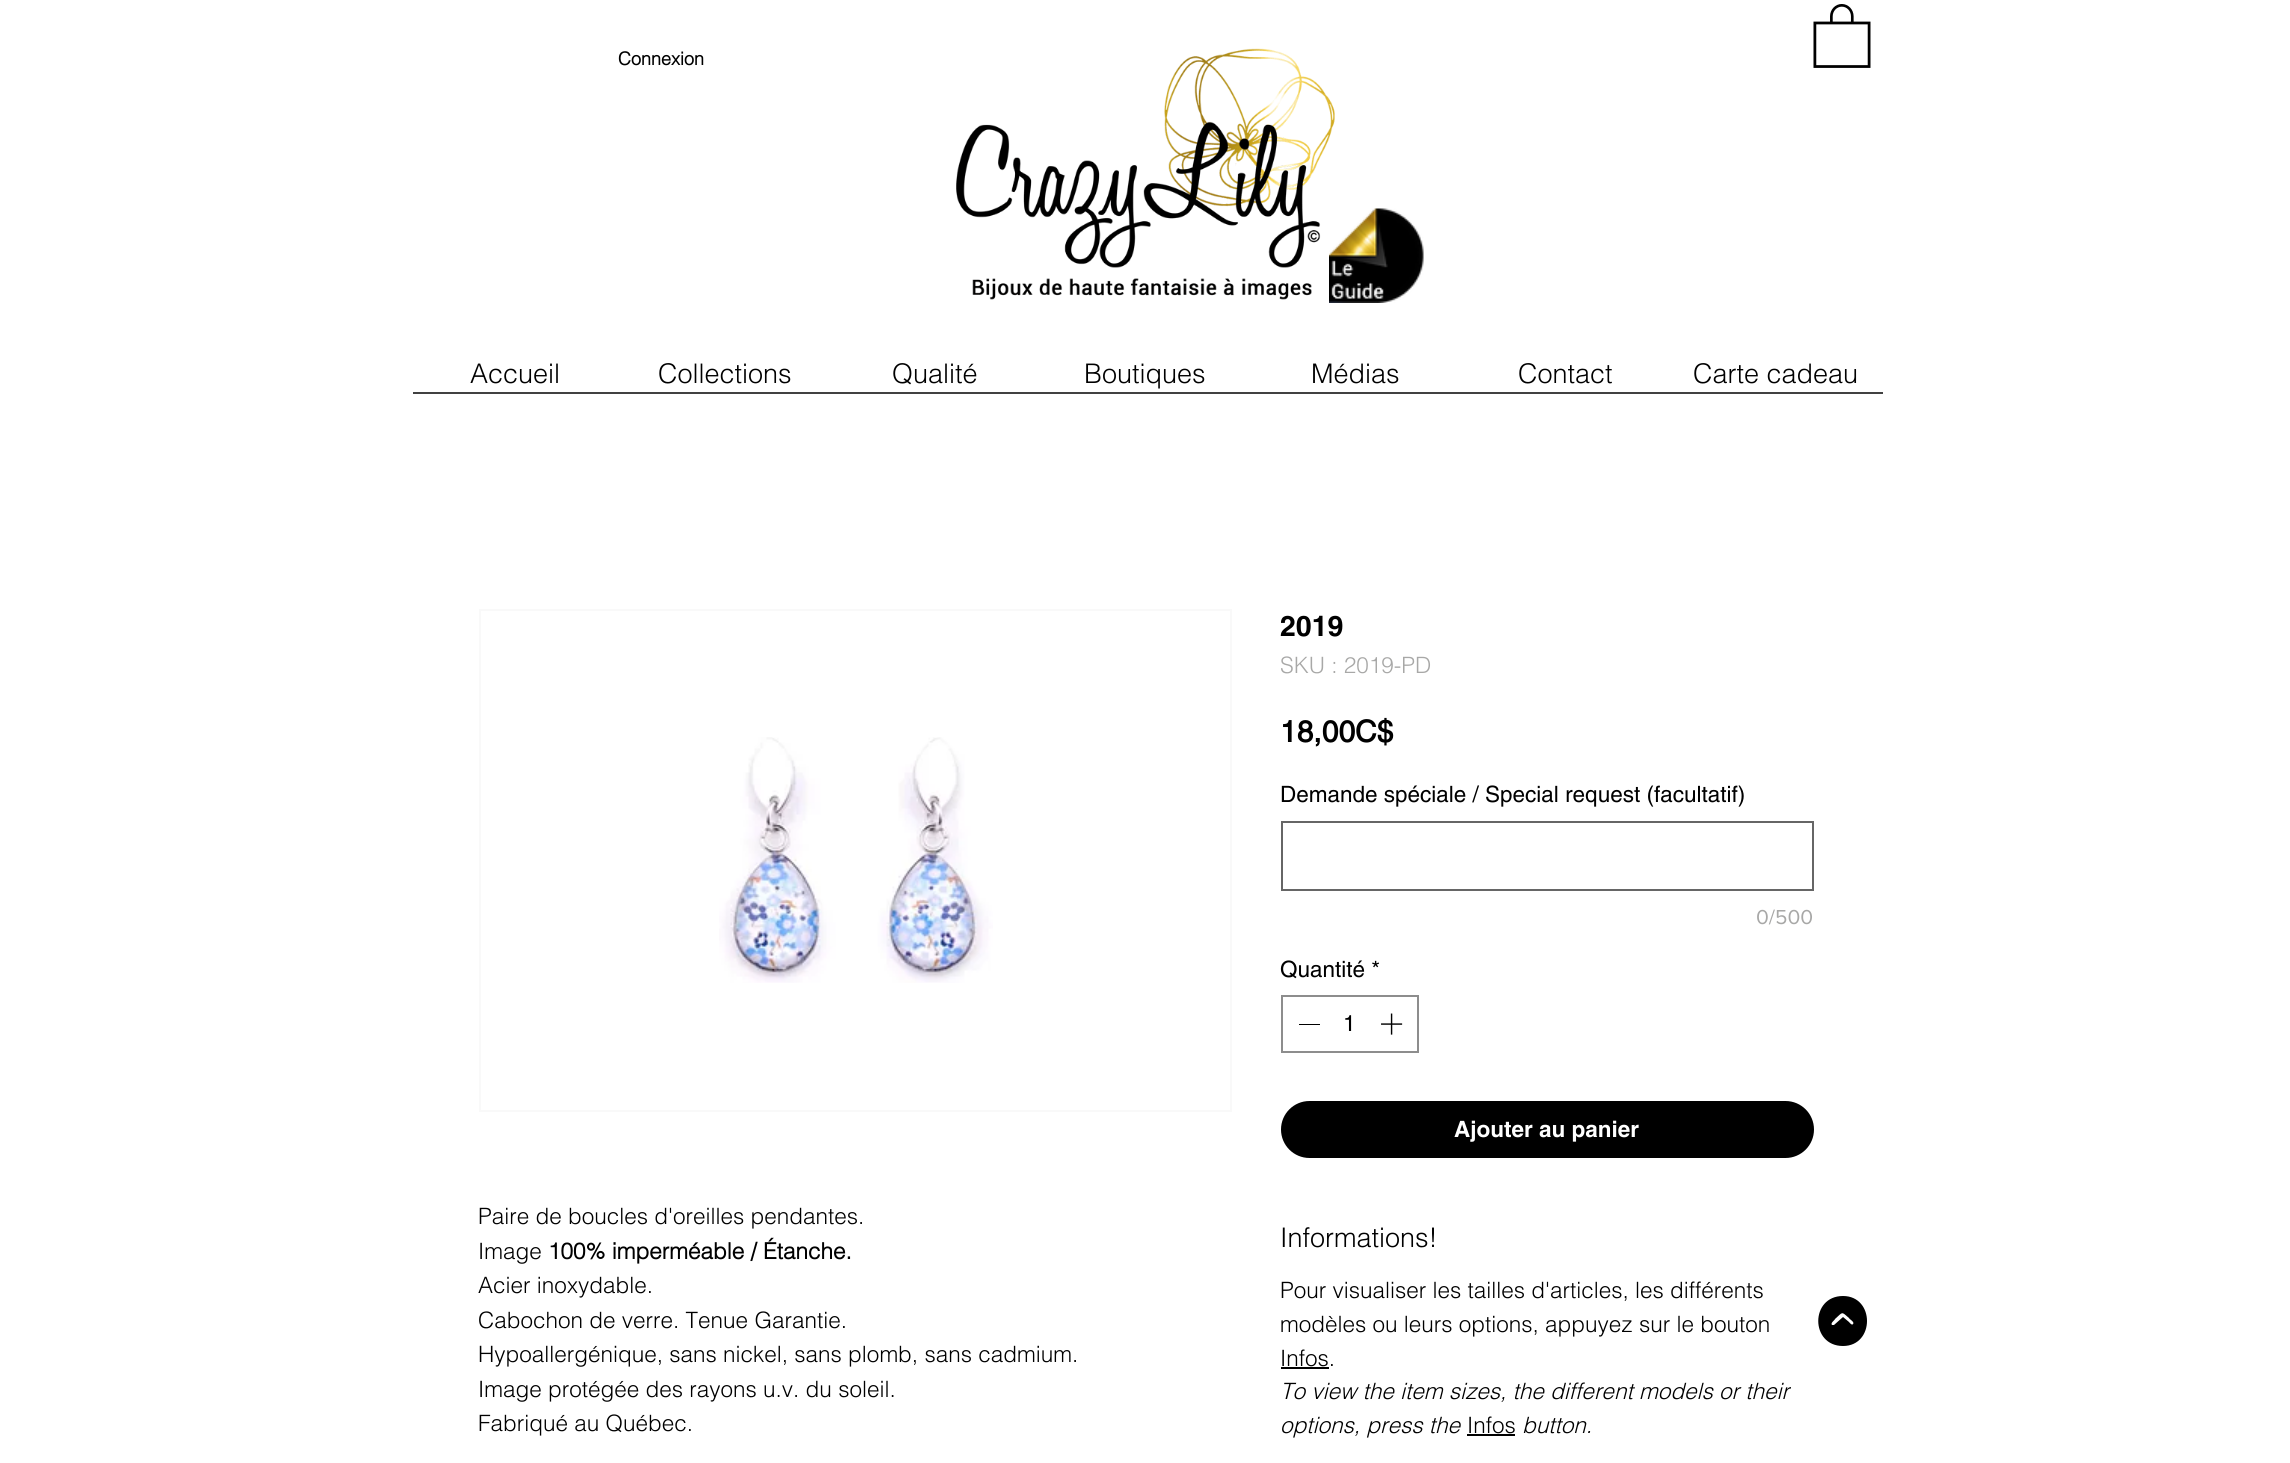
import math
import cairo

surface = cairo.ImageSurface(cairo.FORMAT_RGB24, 2290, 1463)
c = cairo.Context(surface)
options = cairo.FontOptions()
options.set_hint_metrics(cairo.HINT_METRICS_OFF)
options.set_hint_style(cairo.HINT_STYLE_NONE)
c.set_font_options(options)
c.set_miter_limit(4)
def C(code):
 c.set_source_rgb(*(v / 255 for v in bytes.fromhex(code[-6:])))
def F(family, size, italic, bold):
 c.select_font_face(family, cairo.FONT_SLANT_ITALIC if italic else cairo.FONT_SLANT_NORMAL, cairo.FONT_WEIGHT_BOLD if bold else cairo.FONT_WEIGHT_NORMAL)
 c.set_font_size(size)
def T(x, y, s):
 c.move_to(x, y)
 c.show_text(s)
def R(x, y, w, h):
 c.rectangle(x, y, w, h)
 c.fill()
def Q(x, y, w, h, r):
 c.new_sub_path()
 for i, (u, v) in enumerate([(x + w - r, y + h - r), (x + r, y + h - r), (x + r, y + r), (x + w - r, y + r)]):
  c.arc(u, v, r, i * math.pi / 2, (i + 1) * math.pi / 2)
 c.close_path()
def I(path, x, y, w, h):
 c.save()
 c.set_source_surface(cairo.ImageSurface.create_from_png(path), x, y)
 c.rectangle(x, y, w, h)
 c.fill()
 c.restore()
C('ffffff')
c.paint()
I('1.png',1813,4,58,64)
F('helvetica',18,0,1)
C('000000')
T(618,65,'Connexion')
I('2.png',956,48,379,252)
I('3.png',1329,208,95,95)
F('helvetica Light',27,0,0)
T(470,383,'Accueil')
T(658,383,'Collections')
T(892,383,'Qualité')
T(1084,383,'Boutiques')
T(1311,383,'Médias')
T(1518,383,'Contact')
T(1693,383,'Carte cadeau')
C('414141')
R(413,392,1470,2)
c.rectangle(480,610,751,501)
C('f9f9f9')
c.stroke()
I('4.png',719,737,274,246)
F('helvetica Light',22.5,0,0)
C('000000')
T(478,1224,'Paire de boucles d\'oreilles pendantes.')
T(478,1259,'Image')
F('helvetica',22.5,0,1)
T(548,1259,'100% imperméable / Étanche.')
F('helvetica Light',22.5,0,0)
T(478,1293,'Acier inoxydable.')
c.save()
c.rectangle(479,1199,600,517)
c.clip()
T(478,1328,'Cabochon de verre. Tenue Garantie.')
c.restore()
T(478,1362,'Hypoallergénique, sans nickel, sans plomb, sans cadmium.')
T(478,1397,'Image protégée des rayons u.v. du soleil.')
T(478,1431,'Fabriqué au Québec.')
F('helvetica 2',28.5,0,1)
T(1280,636,'2019')
F('helvetica Light',22.5,0,0)
C('a8a8a7')
T(1280,673,'SKU : 2019-PD')
F('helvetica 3',30,0,1)
C('000000')
T(1280,742,'18,00C$')
F('helvetica',22.5,0,0)
T(1280,802,'Demande spéciale / Special request (facultatif)')
c.rectangle(1282,822,531,68)
C('666666')
c.stroke()
F('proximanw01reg',21,0,0)
C('a8a8a7')
T(1756,924,'0/500')
F('helvetica',22.5,0,0)
C('000000')
T(1280,977,'Quantité *')
c.rectangle(1282,996,136,56)
C('8d8d8d')
c.stroke()
C('000000')
R(1299,1024,21,1)
T(1343,1031,'1')
I('5.png',1381,1013,22,22)
Q(1281,1101,533,57,28.5)
c.fill()
F('helvetica 2',22.5,0,1)
C('ffffff')
T(1454,1137,'Ajouter au panier')
F('helvetica Light',27,0,0)
C('000000')
T(1280,1247,'Informations!')
F('helvetica Light',22.5,0,0)
T(1280,1298,'Pour visualiser les tailles d\'articles, les différents')
T(1280,1332,'modèles ou leurs options, appuyez sur le bouton')
T(1280,1366,'Infos.')
R(1281,1367,48,2)
F('helvetica Light',22.5,1,0)
T(1280,1399,'To view the item sizes, the different models or their')
T(1280,1433,'options, press the')
F('helvetica Light',22.5,0,0)
T(1467,1433,'Infos')
R(1467,1434,48,2)
F('helvetica Light',22.5,1,0)
T(1522,1433,'button.')
c.new_path()
c.move_to(1843,1296)
c.curve_to(1810,1296,1810,1346,1843,1346)
c.curve_to(1875,1346,1875,1296,1843,1296)
c.close_path()
c.move_to(1853,1324)
c.curve_to(1852,1326,1849,1322,1849,1322)
c.line_to(1843,1317)
c.line_to(1834,1325)
c.line_to(1832,1325)
c.curve_to(1830,1323,1835,1320,1835,1319)
c.curve_to(1843,1312,1841,1311,1849,1318)
c.curve_to(1849,1319,1855,1322,1853,1324)
c.close_path()
c.fill()
surface.write_to_png('o.png')
